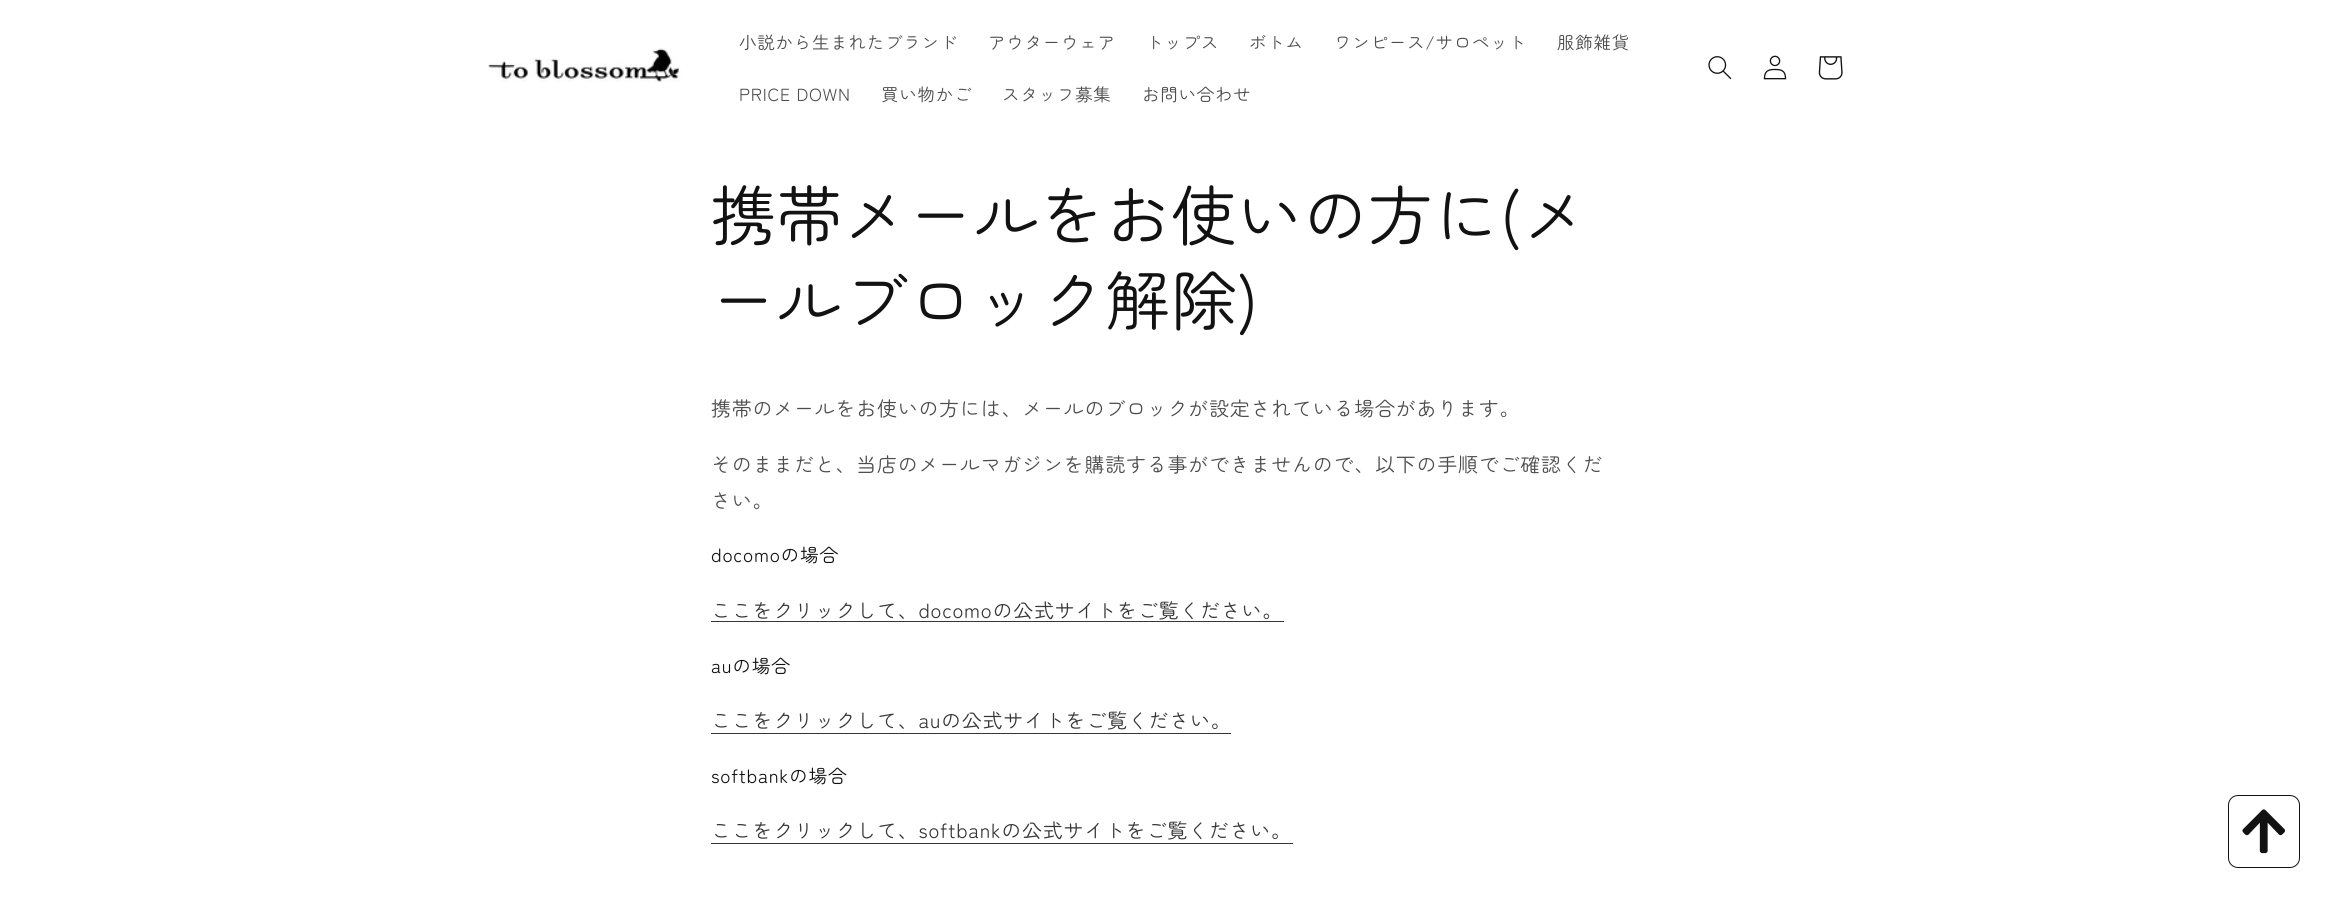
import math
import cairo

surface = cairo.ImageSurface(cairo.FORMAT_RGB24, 2330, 897)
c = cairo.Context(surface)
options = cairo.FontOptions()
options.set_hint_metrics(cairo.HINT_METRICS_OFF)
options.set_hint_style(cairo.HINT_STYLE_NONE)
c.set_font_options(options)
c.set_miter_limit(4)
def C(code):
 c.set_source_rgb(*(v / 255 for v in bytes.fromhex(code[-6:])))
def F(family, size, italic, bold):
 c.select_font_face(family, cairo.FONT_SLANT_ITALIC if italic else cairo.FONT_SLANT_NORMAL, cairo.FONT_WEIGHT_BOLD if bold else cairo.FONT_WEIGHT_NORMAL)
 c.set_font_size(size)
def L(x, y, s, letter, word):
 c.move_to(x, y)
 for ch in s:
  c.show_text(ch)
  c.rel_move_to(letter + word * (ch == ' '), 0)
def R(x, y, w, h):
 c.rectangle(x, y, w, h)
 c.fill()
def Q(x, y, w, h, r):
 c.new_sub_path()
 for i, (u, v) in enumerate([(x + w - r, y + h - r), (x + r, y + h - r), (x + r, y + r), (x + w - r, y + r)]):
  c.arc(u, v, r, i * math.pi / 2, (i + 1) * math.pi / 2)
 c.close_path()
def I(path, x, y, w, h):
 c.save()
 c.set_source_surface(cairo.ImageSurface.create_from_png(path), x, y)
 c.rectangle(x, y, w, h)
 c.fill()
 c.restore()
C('ffffff')
c.paint()
I('1.png',488,48,193,34)
F('Zen Maru Gothic',17.5,0,0)
C('4d4d4d')
L(739,49,'小説から生まれたブランド',.75,0)
L(988,49,'アウターウェア',.75,0)
L(1146,49,'トップス',.75,0)
L(1249,49,'ボトム',.75,0)
L(1334,49,'ワンピース/サロペット',.75,0)
L(1557,49,'服飾雑貨',.75,0)
L(739,101,'PRICE DOWN',.75,0)
L(881,101,'買い物かご',.75,0)
L(1002,101,'スタッフ募集',.75,0)
L(1142,101,'お問い合わせ',.75,0)
I('2.png',1708,56,24,24)
I('3.png',1763,55,24,25)
I('4.png',1818,56,25,24)
F('Zen Maru Gothic',65,0,0)
C('121212')
L(711,240,'携帯メールをお使いの方に(メ',.75,0)
L(711,325,'ールブロック解除)',.75,0)
F('Zen Maru Gothic',20,0,0)
C('4d4d4d')
L(711,416,'携帯のメールをお使いの方には、メールのブロックが設定されている場合があります。',.75,0)
L(711,472,'そのままだと、当店のメールマガジンを購読する事ができませんので、以下の手順でご確認くだ',.75,0)
L(711,508,'さい。',.75,0)
F('Zen Maru Gothic',18.75,0,0)
C('121212')
L(711,562,'docomoの場合',.75,0)
F('Zen Maru Gothic',20,0,0)
C('363636')
L(711,618,'ここをクリックして、docomoの公式サイトをご覧ください。',.75,0)
R(711,621,573,1)
F('Zen Maru Gothic',18.75,0,0)
C('121212')
L(711,673,'auの場合',.75,0)
F('Zen Maru Gothic',20,0,0)
C('363636')
L(711,728,'ここをクリックして、auの公式サイトをご覧ください。',.75,0)
R(711,733,520,1)
F('Zen Maru Gothic',18.75,0,0)
C('121212')
L(711,783,'softbankの場合',.75,0)
F('Zen Maru Gothic',20,0,0)
C('363636')
L(711,838,'ここをクリックして、softbankの公式サイトをご覧ください。',.75,0)
R(711,843,582,1)
Q(2228.5,795.5,71,72,9.5)
C('121212')
c.set_line_width(1)
c.stroke()
I('5.png',2242,809,43,45)
surface.write_to_png('o.png')
